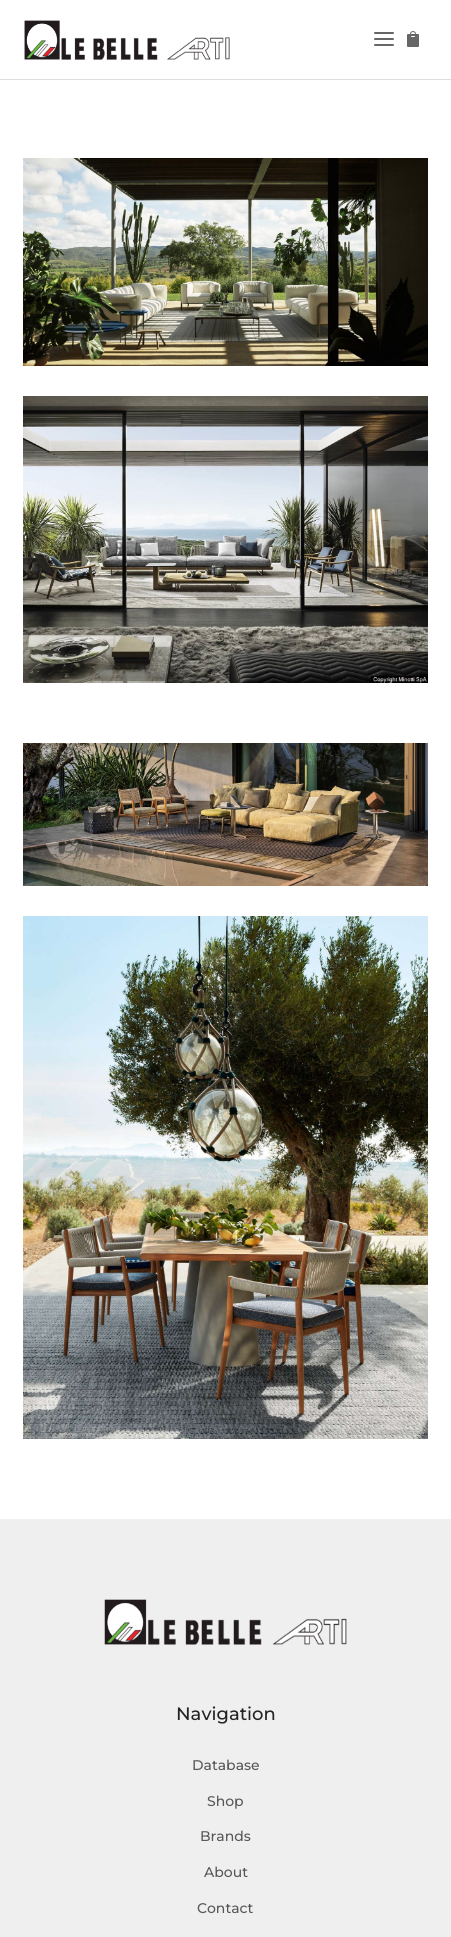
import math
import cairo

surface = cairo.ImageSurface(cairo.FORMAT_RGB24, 451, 1937)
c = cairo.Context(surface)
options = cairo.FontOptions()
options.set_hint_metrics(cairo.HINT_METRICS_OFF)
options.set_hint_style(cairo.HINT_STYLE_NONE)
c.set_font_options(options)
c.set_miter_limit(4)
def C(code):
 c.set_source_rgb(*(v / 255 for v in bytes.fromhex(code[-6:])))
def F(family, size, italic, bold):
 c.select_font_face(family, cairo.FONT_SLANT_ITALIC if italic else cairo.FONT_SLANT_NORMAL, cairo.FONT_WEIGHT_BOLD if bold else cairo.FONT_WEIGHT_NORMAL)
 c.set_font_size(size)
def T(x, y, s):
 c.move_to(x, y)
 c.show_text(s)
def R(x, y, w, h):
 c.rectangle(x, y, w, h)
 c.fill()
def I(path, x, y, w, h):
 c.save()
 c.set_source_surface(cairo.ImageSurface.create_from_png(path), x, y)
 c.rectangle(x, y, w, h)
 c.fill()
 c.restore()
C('ffffff')
c.paint()
I('1.png',24,20,206,40)
I('2.png',374,32,20,14)
I('3.png',407,31,12,16)
C('dddddd')
R(0,79,451,1)
I('4.png',23,158,405,208)
I('5.png',23,396,405,287)
I('6.png',23,743,405,143)
I('7.png',23,916,405,523)
C('efefef')
R(0,1519,451,418)
I('8.png',104,1599,243,46)
F('Montserrat Thin',18,0,0)
C('232323')
T(176,1720,'Navigation')
F('Montserrat Thin',14,0,0)
C('585858')
T(192,1770,'Database')
T(207,1806,'Shop')
T(200,1841,'Brands')
T(204,1877,'About')
T(197,1913,'Contact')
surface.write_to_png('o.png')
